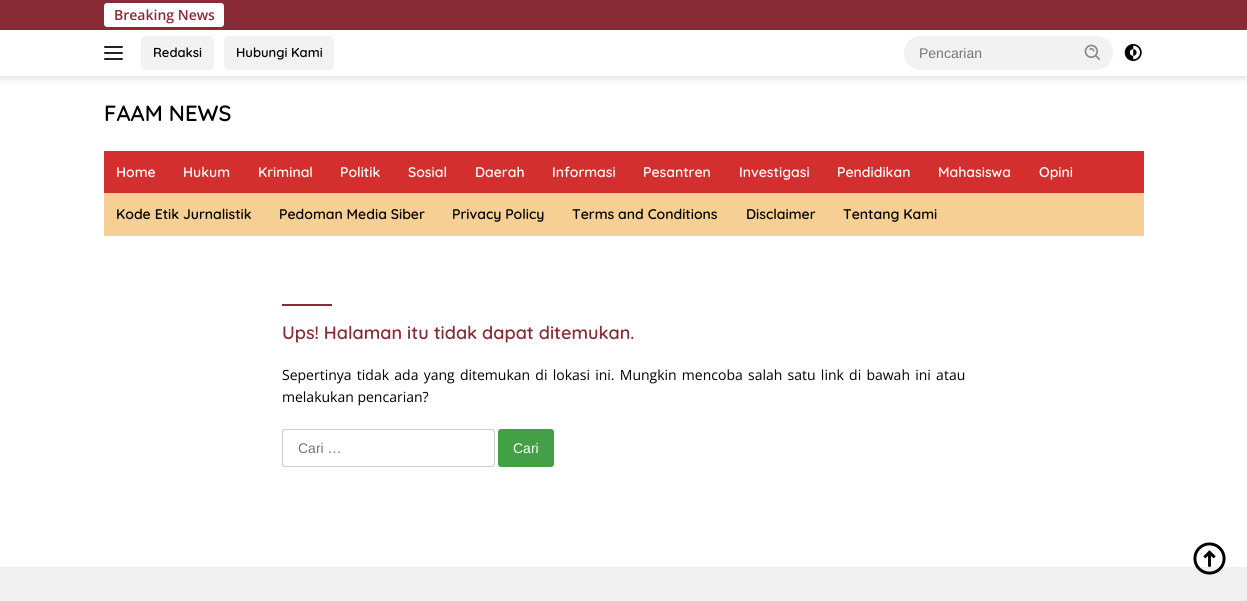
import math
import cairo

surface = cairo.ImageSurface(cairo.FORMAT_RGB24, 1247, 601)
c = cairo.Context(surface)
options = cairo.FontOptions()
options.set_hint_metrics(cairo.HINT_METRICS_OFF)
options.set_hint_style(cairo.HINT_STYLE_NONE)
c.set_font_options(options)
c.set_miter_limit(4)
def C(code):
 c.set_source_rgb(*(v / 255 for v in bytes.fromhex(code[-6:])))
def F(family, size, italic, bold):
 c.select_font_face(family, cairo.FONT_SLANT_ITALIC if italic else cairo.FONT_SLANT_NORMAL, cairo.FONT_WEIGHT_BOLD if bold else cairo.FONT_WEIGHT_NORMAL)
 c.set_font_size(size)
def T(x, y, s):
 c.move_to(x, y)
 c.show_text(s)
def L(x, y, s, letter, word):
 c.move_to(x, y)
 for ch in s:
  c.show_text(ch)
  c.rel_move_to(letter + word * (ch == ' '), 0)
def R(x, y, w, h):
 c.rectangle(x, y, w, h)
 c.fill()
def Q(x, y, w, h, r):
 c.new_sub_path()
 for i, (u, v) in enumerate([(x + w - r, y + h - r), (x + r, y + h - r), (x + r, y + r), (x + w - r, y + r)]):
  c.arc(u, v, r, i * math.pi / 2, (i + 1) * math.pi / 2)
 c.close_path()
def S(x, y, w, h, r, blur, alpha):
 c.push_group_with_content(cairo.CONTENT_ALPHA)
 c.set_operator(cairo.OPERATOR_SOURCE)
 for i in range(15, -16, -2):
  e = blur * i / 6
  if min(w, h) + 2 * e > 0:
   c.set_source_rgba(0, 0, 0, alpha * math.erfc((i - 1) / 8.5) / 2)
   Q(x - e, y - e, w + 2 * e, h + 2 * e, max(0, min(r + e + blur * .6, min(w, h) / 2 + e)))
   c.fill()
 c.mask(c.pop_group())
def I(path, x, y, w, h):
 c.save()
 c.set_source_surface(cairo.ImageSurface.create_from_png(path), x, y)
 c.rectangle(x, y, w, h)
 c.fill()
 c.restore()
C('ffffff')
c.paint()
C('000000')
S(0,0,1247,76,0,5,.2)
C('ffffff')
R(0,30,1247,46)
C('882b36')
R(0,0,1247,30)
C('ffffff')
Q(104,3,120,24,3)
c.fill()
F('Open Sans SemiBold',14,0,0)
C('882b36')
T(114,20,'Breaking News')
C('222222')
Q(104,46,19,2,1)
c.fill()
Q(104,52,19,2,1)
c.fill()
Q(104,58,19,2,1)
c.fill()
C('f2f2f2')
Q(141,36,73,34,5)
c.fill()
F('Quicksand SemiBold',13,0,0)
C('000000')
T(153,57,'Redaksi')
C('f2f2f2')
Q(224,36,110,34,5)
c.fill()
C('000000')
T(236,57,'Hubungi Kami')
C('f2f2f2')
Q(904,36,209,34,17)
c.fill()
F('Liberation Sans',14,0,0)
C('757575')
T(919,58,'Pencarian')
I('1.png',1084,44,17,17)
I('2.png',1124,44,18,17)
F('Quicksand SemiBold',22,0,0)
C('000000')
T(104,121,'FAAM NEWS')
C('f5cf93')
R(104,193,1040,43)
C('d32f2f')
R(104,151,1040,42)
F('Quicksand SemiBold',14,0,0)
C('ffffff')
T(116,177,'Home')
T(183,177,'Hukum')
T(258,177,'Kriminal')
T(340,177,'Politik')
T(408,177,'Sosial')
T(475,177,'Daerah')
T(552,177,'Informasi')
T(643,177,'Pesantren')
T(739,177,'Investigasi')
T(837,177,'Pendidikan')
T(938,177,'Mahasiswa')
T(1039,177,'Opini')
C('000000')
T(116,219,'Kode Etik Jurnalistik')
T(279,219,'Pedoman Media Siber')
T(452,219,'Privacy Policy')
T(572,219,'Terms and Conditions')
T(746,219,'Disclaimer')
T(843,219,'Tentang Kami')
C('882b36')
R(282,304,50,2)
F('Quicksand SemiBold',18,0,0)
T(282,339,'Ups! Halaman itu tidak dapat ditemukan.')
F('Open Sans',14,0,0)
C('000000')
L(282,380,'Sepertinya tidak ada yang ditemukan di lokasi ini. Mungkin mencoba salah satu link di bawah ini atau',0,1.6)
T(282,402,'melakukan pencarian?')
Q(282.5,429.5,212,37,2.5)
C('cccccc')
c.set_line_width(1)
c.stroke()
F('Liberation Sans',14,0,0)
C('757575')
T(298,453,'Cari …')
C('43a047')
Q(498,429,56,38,3)
c.fill()
C('ffffff')
T(513,453,'Cari')
C('f0f0f0')
R(0,567,1247,34)
I('3.png',1193,542,33,33)
surface.write_to_png('o.png')
